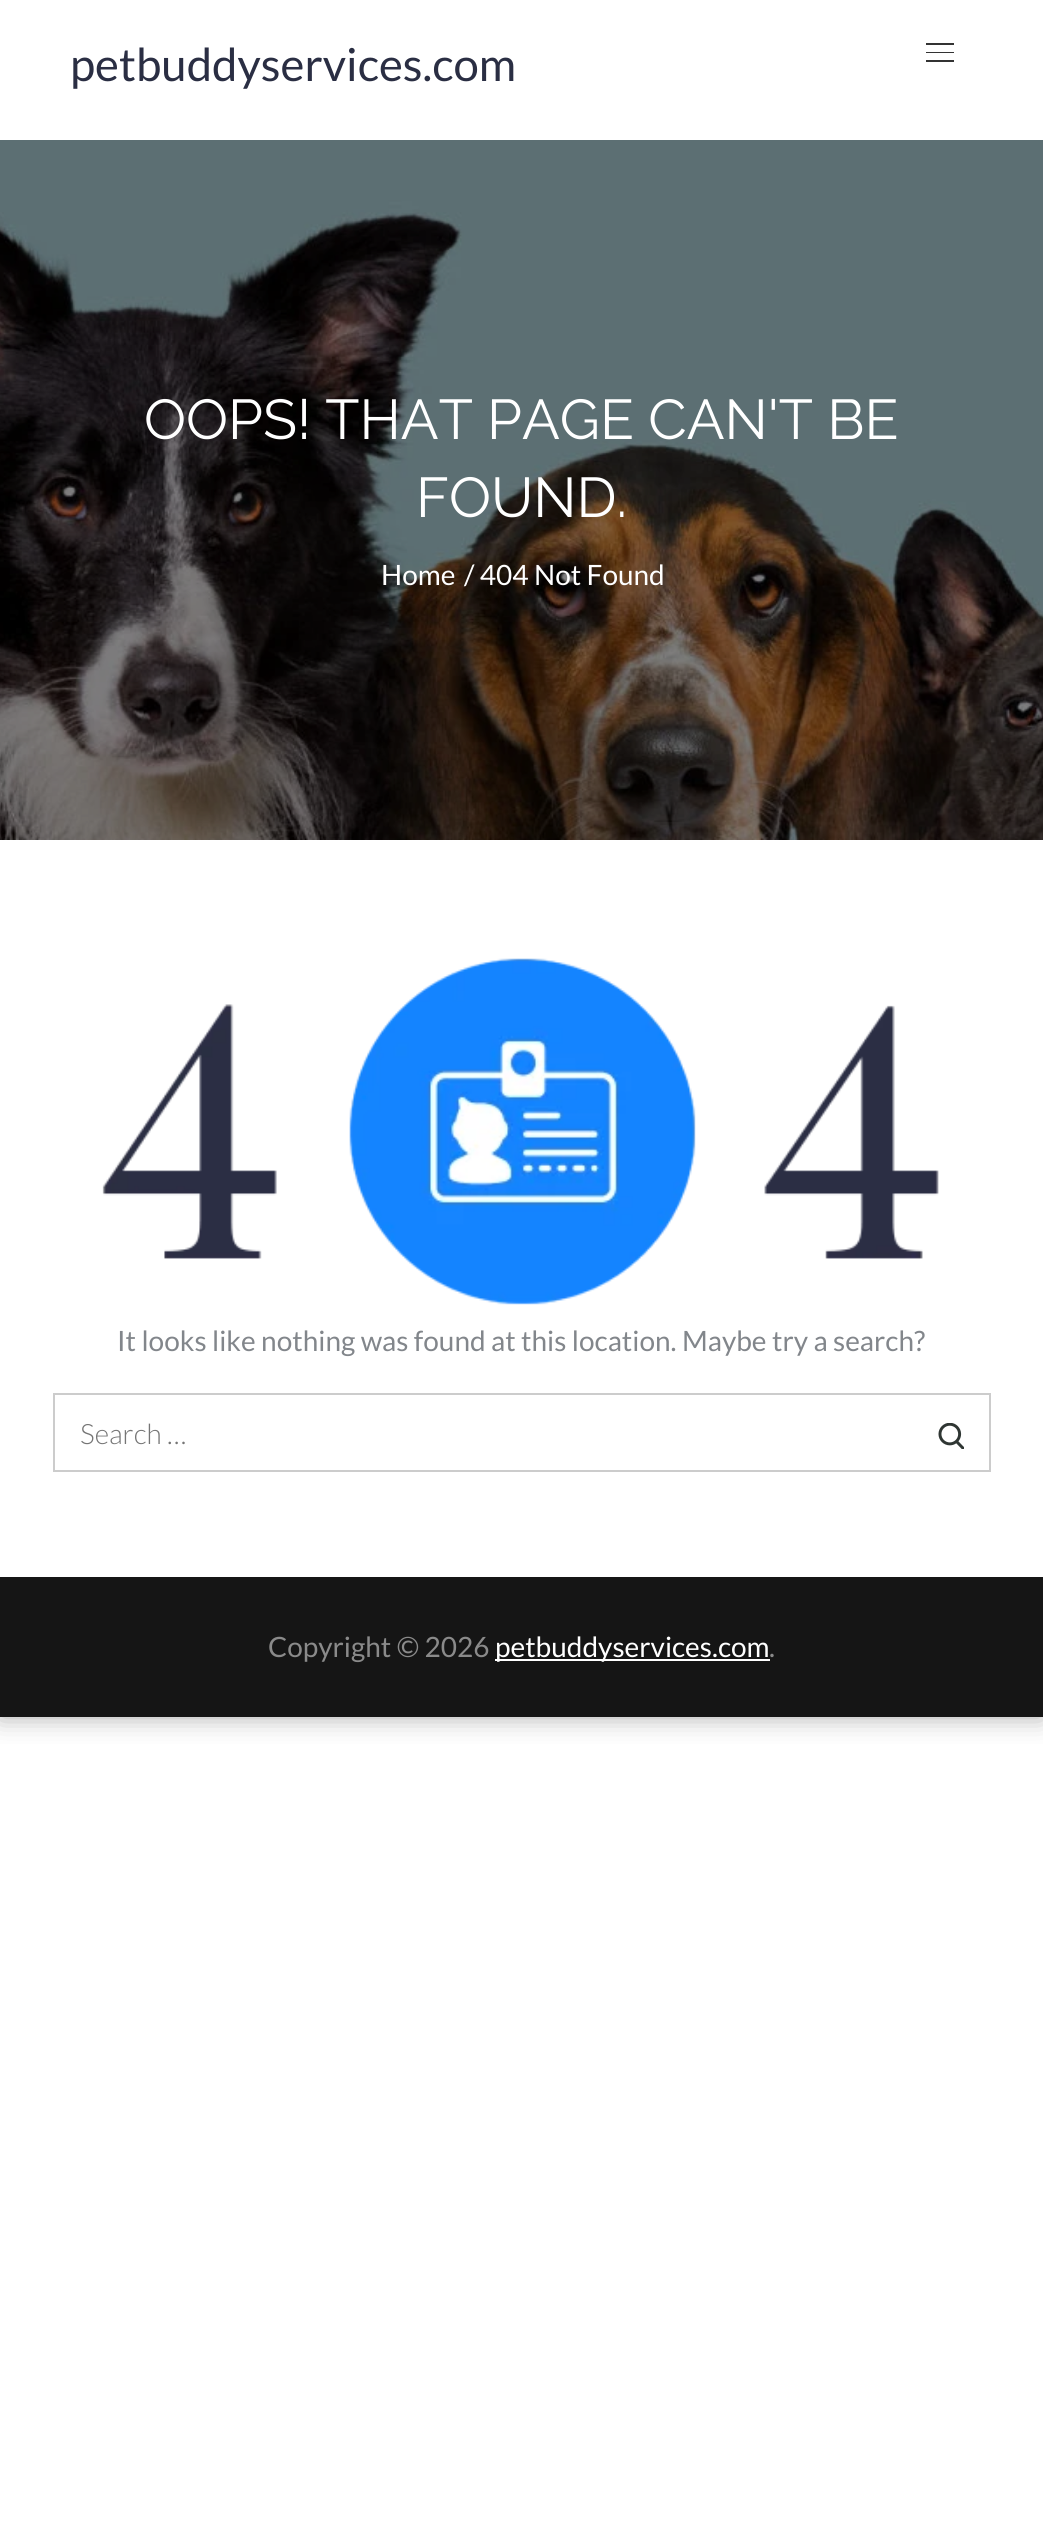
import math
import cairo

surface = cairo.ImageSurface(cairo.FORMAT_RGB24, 1043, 2526)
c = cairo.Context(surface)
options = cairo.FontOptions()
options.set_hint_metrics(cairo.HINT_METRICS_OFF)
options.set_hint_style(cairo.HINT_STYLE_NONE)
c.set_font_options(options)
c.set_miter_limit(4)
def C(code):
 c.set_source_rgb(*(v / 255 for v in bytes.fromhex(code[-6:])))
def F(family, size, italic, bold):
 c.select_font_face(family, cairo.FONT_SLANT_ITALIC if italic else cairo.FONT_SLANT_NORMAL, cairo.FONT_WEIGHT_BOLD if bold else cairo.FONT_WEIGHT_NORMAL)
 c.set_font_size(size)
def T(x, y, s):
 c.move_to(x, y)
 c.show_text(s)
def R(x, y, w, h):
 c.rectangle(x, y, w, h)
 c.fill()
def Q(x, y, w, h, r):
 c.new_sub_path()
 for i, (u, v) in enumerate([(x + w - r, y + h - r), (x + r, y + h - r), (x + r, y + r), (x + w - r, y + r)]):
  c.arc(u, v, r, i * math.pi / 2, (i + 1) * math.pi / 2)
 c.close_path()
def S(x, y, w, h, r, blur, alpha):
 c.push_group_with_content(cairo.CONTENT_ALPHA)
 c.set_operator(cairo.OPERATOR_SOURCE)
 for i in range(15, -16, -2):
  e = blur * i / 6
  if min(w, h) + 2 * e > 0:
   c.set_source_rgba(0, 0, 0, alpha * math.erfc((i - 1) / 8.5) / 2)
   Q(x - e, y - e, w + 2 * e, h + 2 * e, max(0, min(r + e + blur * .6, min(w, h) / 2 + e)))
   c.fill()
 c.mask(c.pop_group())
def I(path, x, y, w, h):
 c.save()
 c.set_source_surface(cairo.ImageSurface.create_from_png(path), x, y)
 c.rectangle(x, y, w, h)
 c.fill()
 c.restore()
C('ffffff')
c.paint()
c.save()
c.rectangle(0,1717,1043,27)
c.clip()
C('aaaaaa')
S(0,0,1043,1717,0,13,1)
c.restore()
F('Lato',45.5,0,0)
C('2a2e43')
T(70,81,'petbuddyservices.com')
C('333333')
R(926,43,28,2)
R(926,52,28,1)
R(926,60,28,2)
I('1.png',0,140,1043,700)
F('Raleway',56,0,0)
C('ffffff')
T(144,439,'OOPS! THAT PAGE CAN\'T BE')
T(416,517,'FOUND.')
F('Lato',28,0,0)
T(381,585,'Home')
T(464,585,'/ 404 Not Found')
I('2.png',102,958,837,347)
C('82868b')
T(117,1351,'It looks like nothing was found at this location. Maybe try a search?')
c.rectangle(54,1394,936,77)
C('cccccc')
c.stroke()
F('Lato Light',28,0,0)
C('757575')
T(80,1444,'Search …')
I('3.png',938,1423,26,26)
C('151515')
R(0,1577,1043,140)
F('Lato',28,0,0)
C('8a8a8a')
T(268,1657,'Copyright © 2026')
C('ffffff')
R(495,1659,275,2)
T(495,1657,'petbuddyservices.com')
C('8a8a8a')
T(769,1657,'.')
surface.write_to_png('o.png')
